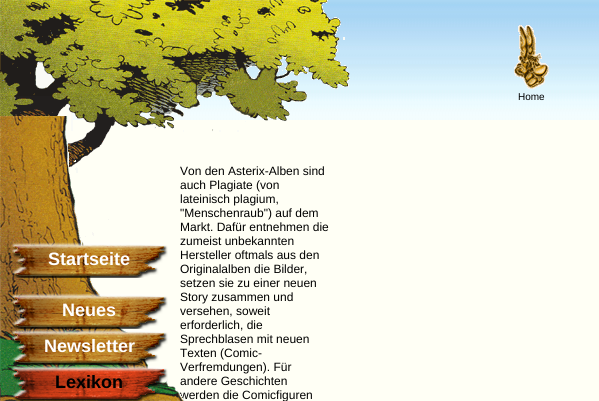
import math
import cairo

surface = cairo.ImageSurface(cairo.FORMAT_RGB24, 599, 401)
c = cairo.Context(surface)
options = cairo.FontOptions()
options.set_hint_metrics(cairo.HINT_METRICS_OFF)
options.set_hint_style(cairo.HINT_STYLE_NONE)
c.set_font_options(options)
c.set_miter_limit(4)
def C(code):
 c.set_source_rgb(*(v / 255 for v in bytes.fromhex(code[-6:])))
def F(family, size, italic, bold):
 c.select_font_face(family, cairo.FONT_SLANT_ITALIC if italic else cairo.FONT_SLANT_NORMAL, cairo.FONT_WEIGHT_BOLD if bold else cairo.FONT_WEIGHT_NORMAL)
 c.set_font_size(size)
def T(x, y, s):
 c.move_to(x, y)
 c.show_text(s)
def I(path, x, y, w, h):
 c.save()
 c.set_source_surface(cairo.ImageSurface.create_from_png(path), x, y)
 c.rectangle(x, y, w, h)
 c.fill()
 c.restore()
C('fffff5')
c.paint()
I('1.png',73,0,526,120)
I('2.png',514,25,35,64)
F('Liberation Sans',10,0,0)
C('000000')
T(518,100,'Home')
I('3.png',0,0,350,132)
I('4.png',0,96,124,150)
F('Liberation Sans',12,0,0)
T(180,175,'Von den Asterix-Alben sind')
T(180,189,'auch Plagiate (von')
T(180,203,'lateinisch plagium,')
T(180,217,'"Menschenraub") auf dem')
T(180,231,'Markt. Dafür entnehmen die')
T(180,245,'zumeist unbekannten')
T(180,259,'Hersteller oftmals aus den')
T(180,273,'Originalalben die Bilder,')
T(180,287,'setzen sie zu einer neuen')
T(180,301,'Story zusammen und')
T(180,315,'versehen, soweit')
T(180,329,'erforderlich, die')
T(180,343,'Sprechblasen mit neuen')
T(180,357,'Texten (Comic-')
T(180,371,'Verfremdungen). Für')
T(180,385,'andere Geschichten')
T(180,399,'werden die Comicfiguren')
I('5.png',0,116,185,285)
I('6.png',11,242,157,36)
F('Liberation Sans',18,0,1)
C('ffffff')
T(48,265,'Startseite')
I('7.png',11,293,157,36)
T(62,316,'Neues')
I('8.png',11,329,157,36)
T(44,352,'Newsletter')
I('9.png',11,365,157,36)
C('000000')
T(55,388,'Lexikon')
surface.write_to_png('o.png')
